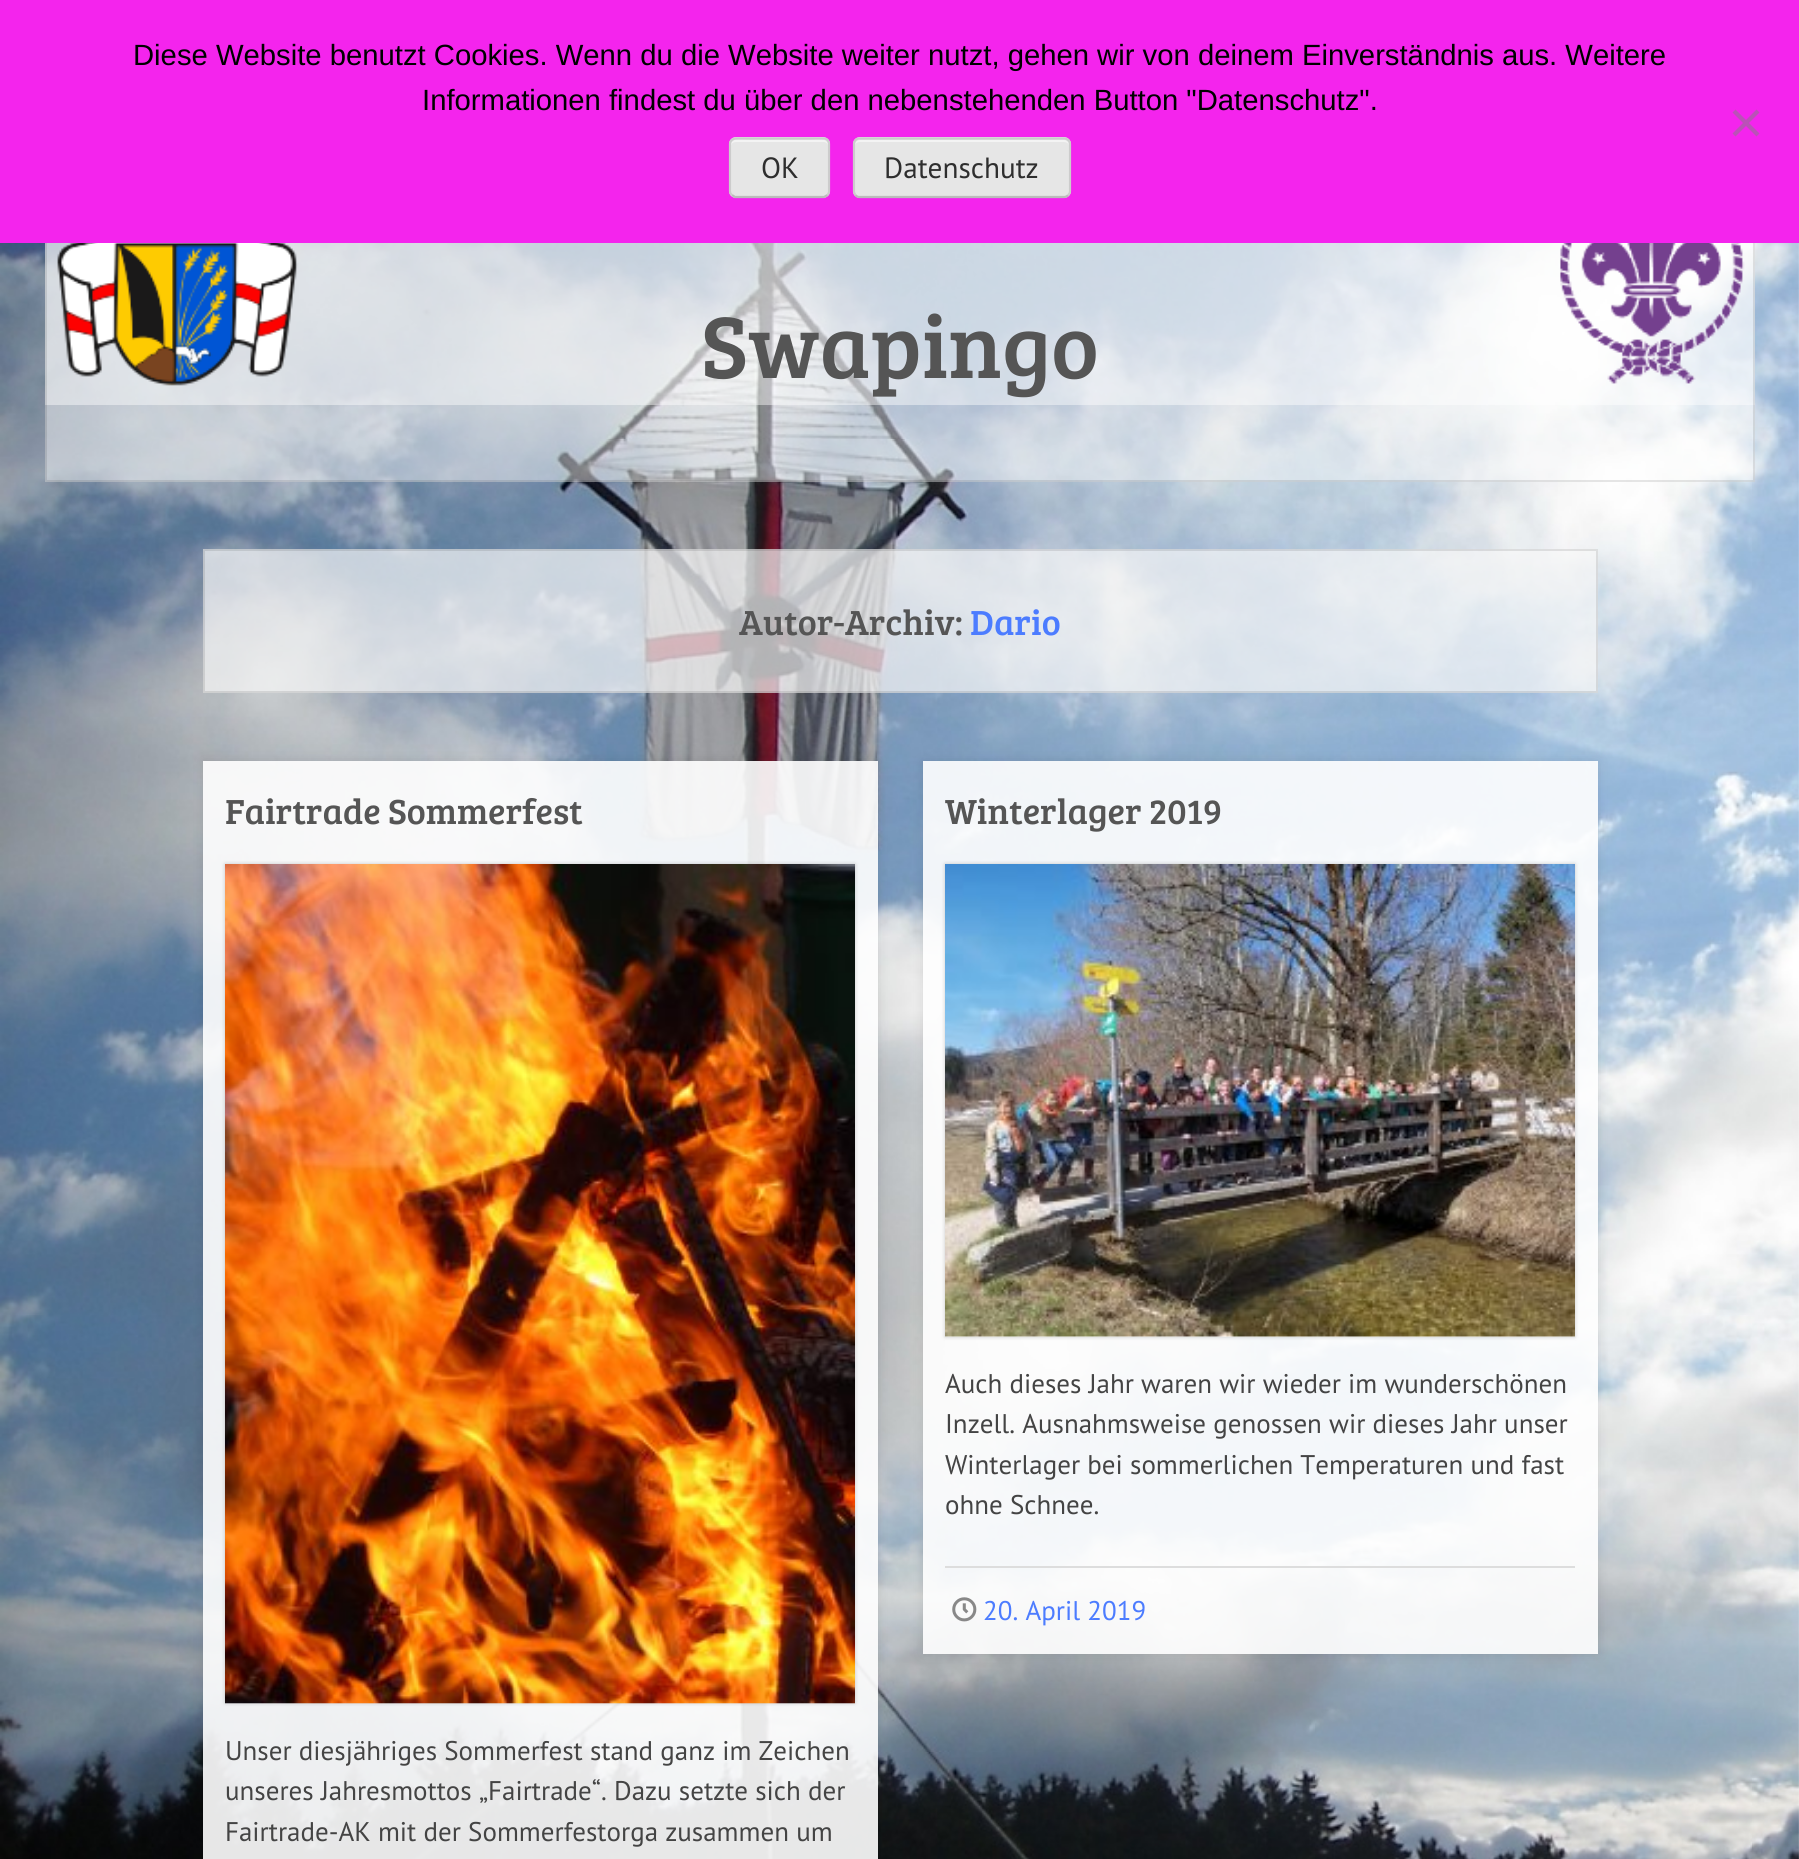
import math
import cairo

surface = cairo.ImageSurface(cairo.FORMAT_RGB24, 1799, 1859)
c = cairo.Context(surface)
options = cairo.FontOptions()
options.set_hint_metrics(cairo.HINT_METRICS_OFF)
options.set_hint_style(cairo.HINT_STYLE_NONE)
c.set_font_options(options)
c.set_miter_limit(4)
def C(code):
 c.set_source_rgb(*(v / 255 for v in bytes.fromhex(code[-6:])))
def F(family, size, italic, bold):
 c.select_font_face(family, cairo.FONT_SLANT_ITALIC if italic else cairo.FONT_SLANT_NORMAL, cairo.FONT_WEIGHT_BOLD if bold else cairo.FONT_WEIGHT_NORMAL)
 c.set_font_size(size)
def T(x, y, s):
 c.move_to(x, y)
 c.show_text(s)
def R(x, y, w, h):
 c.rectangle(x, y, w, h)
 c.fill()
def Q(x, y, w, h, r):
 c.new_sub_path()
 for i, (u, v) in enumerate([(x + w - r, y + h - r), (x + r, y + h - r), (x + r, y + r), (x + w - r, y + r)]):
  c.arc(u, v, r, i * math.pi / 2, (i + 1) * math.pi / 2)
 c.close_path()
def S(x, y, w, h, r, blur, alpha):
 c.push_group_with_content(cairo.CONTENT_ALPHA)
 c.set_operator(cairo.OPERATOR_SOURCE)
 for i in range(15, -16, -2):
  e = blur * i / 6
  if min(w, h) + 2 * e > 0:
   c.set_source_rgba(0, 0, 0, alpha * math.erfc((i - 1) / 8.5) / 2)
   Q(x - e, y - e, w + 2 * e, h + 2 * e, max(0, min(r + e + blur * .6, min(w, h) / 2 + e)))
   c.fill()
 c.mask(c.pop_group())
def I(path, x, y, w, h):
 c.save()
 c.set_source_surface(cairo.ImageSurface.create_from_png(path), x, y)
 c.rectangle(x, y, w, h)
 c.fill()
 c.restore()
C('ffffff')
c.paint()
I('1.png',0,243,1799,1616)
c.set_source_rgba(1,1,1,0.44)
R(45,243,1710,239)
I('2.png',45,243,1710,162)
c.rectangle(46,73,1708,408)
c.set_source_rgba(0,0,0,0.1)
c.stroke()
C('f424ed')
R(0,0,1799,243)
F('Liberation Sans',29.25,0,0)
C('000000')
T(133,65,'Diese Website benutzt Cookies. Wenn du die Website weiter nutzt, gehen wir von deinem Einverständnis aus. Weitere')
T(422,110,'Informationen findest du über den nebenstehenden Button "Datenschutz".')
C('ba52b7')
c.new_path()
c.move_to(1756.5,109.5)
c.line_to(1759.5,112.5)
c.line_to(1735.5,136.5)
c.line_to(1732.5,133.5)
c.close_path()
c.fill()
c.new_path()
c.move_to(1732.5,112.5)
c.line_to(1735.5,109.5)
c.line_to(1759.5,133.5)
c.line_to(1756.5,136.5)
c.close_path()
c.fill()
C('e6e6e6')
Q(729,137,101,61,7)
c.fill()
C('f3f3f3')
c.new_path()
c.move_to(736,142)
c.line_to(824,142)
c.curve_to(826,142,828,144,828,146)
c.curve_to(828,136,814,140,808,140)
c.line_to(750,140)
c.curve_to(745,140,731,136,731,146)
c.curve_to(731,144,733,142,736,142)
c.close_path()
c.fill()
c.new_path()
c.move_to(827.5,195)
c.line_to(824,197)
c.line_to(735,197)
c.line_to(732,195)
C('bbbbbb')
c.set_line_width(2.2)
c.stroke()
c.new_path()
c.move_to(732,195)
c.curve_to(730.5,194,730,192.5,730,191)
c.line_to(730,144)
c.curve_to(730,142.5,730.5,141,732,140)
c.curve_to(733,139,734.5,138.5,736,138.5)
c.line_to(823.5,138.5)
c.curve_to(825,138.5,826.5,139,827.5,140)
c.curve_to(828.5,141,829,142.5,829,144)
c.line_to(829,191)
c.curve_to(829,192.5,828.5,194,827.5,195)
C('cccccc')
c.stroke()
F('PT Sans',29.25,0,0)
C('2e2e2e')
T(761,178,'OK')
C('e6e6e6')
Q(853,137,218,61,7)
c.fill()
C('f3f3f3')
c.new_path()
c.move_to(860,142)
c.line_to(1064,142)
c.curve_to(1067,142,1069,144,1069,146)
c.curve_to(1069,143,1067,140,1064,140)
c.line_to(859,140)
c.curve_to(856,141,855,143,855,146)
c.curve_to(855,144,857,142,860,142)
c.close_path()
c.fill()
c.new_path()
c.move_to(1068,195)
c.curve_to(1067,196.5,1065.5,197,1064,197)
c.line_to(859.5,197)
c.curve_to(858,197,856.5,196.5,855.5,195)
C('bbbbbb')
c.stroke()
c.new_path()
c.move_to(855.5,195)
c.curve_to(854.5,194,854,192.5,854,191)
c.line_to(854,144)
c.curve_to(854,142.5,854.5,141,855.5,140)
c.curve_to(856.5,139,858,138.5,859.5,138.5)
c.line_to(1064,138.5)
c.curve_to(1065.5,138.5,1067,139,1068,140)
c.curve_to(1069.5,141,1070,142.5,1070,144)
c.line_to(1070,191)
c.curve_to(1070,192.5,1069.5,194,1068,195)
C('cccccc')
c.stroke()
C('2e2e2e')
T(884,178,'Datenschutz')
F('Bree Serif',90,0,0)
C('555555')
T(701,378,'Swapingo')
c.set_source_rgba(0.973,0.973,0.973,0.7)
R(203,549,1395,144)
c.rectangle(204,550,1393,142)
c.set_source_rgba(0,0,0,0.1)
c.set_line_width(2)
c.stroke()
F('Bree Serif',36,0,0)
C('555555')
T(739,635,'Autor-Archiv:')
C('4c7cff')
T(970,635,'Dario')
c.save()
c.set_fill_rule(cairo.FILL_RULE_EVEN_ODD)
c.new_path()
c.move_to(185,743)
c.line_to(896,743)
c.line_to(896,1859)
c.line_to(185,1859)
c.close_path()
c.move_to(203,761)
c.line_to(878,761)
c.line_to(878,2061)
c.line_to(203,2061)
c.close_path()
c.clip()
C('000000')
S(203,761,675,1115,0,5.5,.1)
c.restore()
c.set_source_rgba(1,1,1,0.9)
R(203,761,675,1098)
C('555555')
T(225,824,'Fairtrade Sommerfest')
C('000000')
S(225,864,630,839,0,2,.2)
I('3.png',225,864,630,840)
F('PT Sans',27,0,0)
C('444444')
T(225,1760,'Unser diesjähriges Sommerfest stand ganz im Zeichen')
T(225,1800,'unseres Jahresmottos „Fairtrade“. Dazu setzte sich der')
T(225,1841,'Fairtrade-AK mit der Sommerfestorga zusammen um')
c.save()
c.set_fill_rule(cairo.FILL_RULE_EVEN_ODD)
c.new_path()
c.move_to(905,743)
c.line_to(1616,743)
c.line_to(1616,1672)
c.line_to(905,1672)
c.close_path()
c.move_to(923,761)
c.line_to(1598,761)
c.line_to(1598,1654)
c.line_to(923,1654)
c.close_path()
c.clip()
C('000000')
S(923,761,675,893,0,5.5,.1)
c.restore()
c.set_source_rgba(1,1,1,0.9)
R(923,761,675,893)
F('Bree Serif',36,0,0)
C('555555')
T(945,824,'Winterlager 2019')
C('000000')
S(945,864,630,473,0,2,.2)
C('f8f8f8')
R(945,1336,630,1)
I('4.png',945,864,630,473)
F('PT Sans',27,0,0)
C('444444')
T(945,1393,'Auch dieses Jahr waren wir wieder im wunderschönen')
T(945,1433,'Inzell. Ausnahmsweise genossen wir dieses Jahr unser')
T(945,1474,'Winterlager bei sommerlichen Temperaturen und fast')
T(945,1514,'ohne Schnee.')
C('dddddd')
R(945,1566,630,2)
I('5.png',952,1597,25,25)
C('4c7cff')
T(983,1620,'20. April 2019')
surface.write_to_png('o.png')
